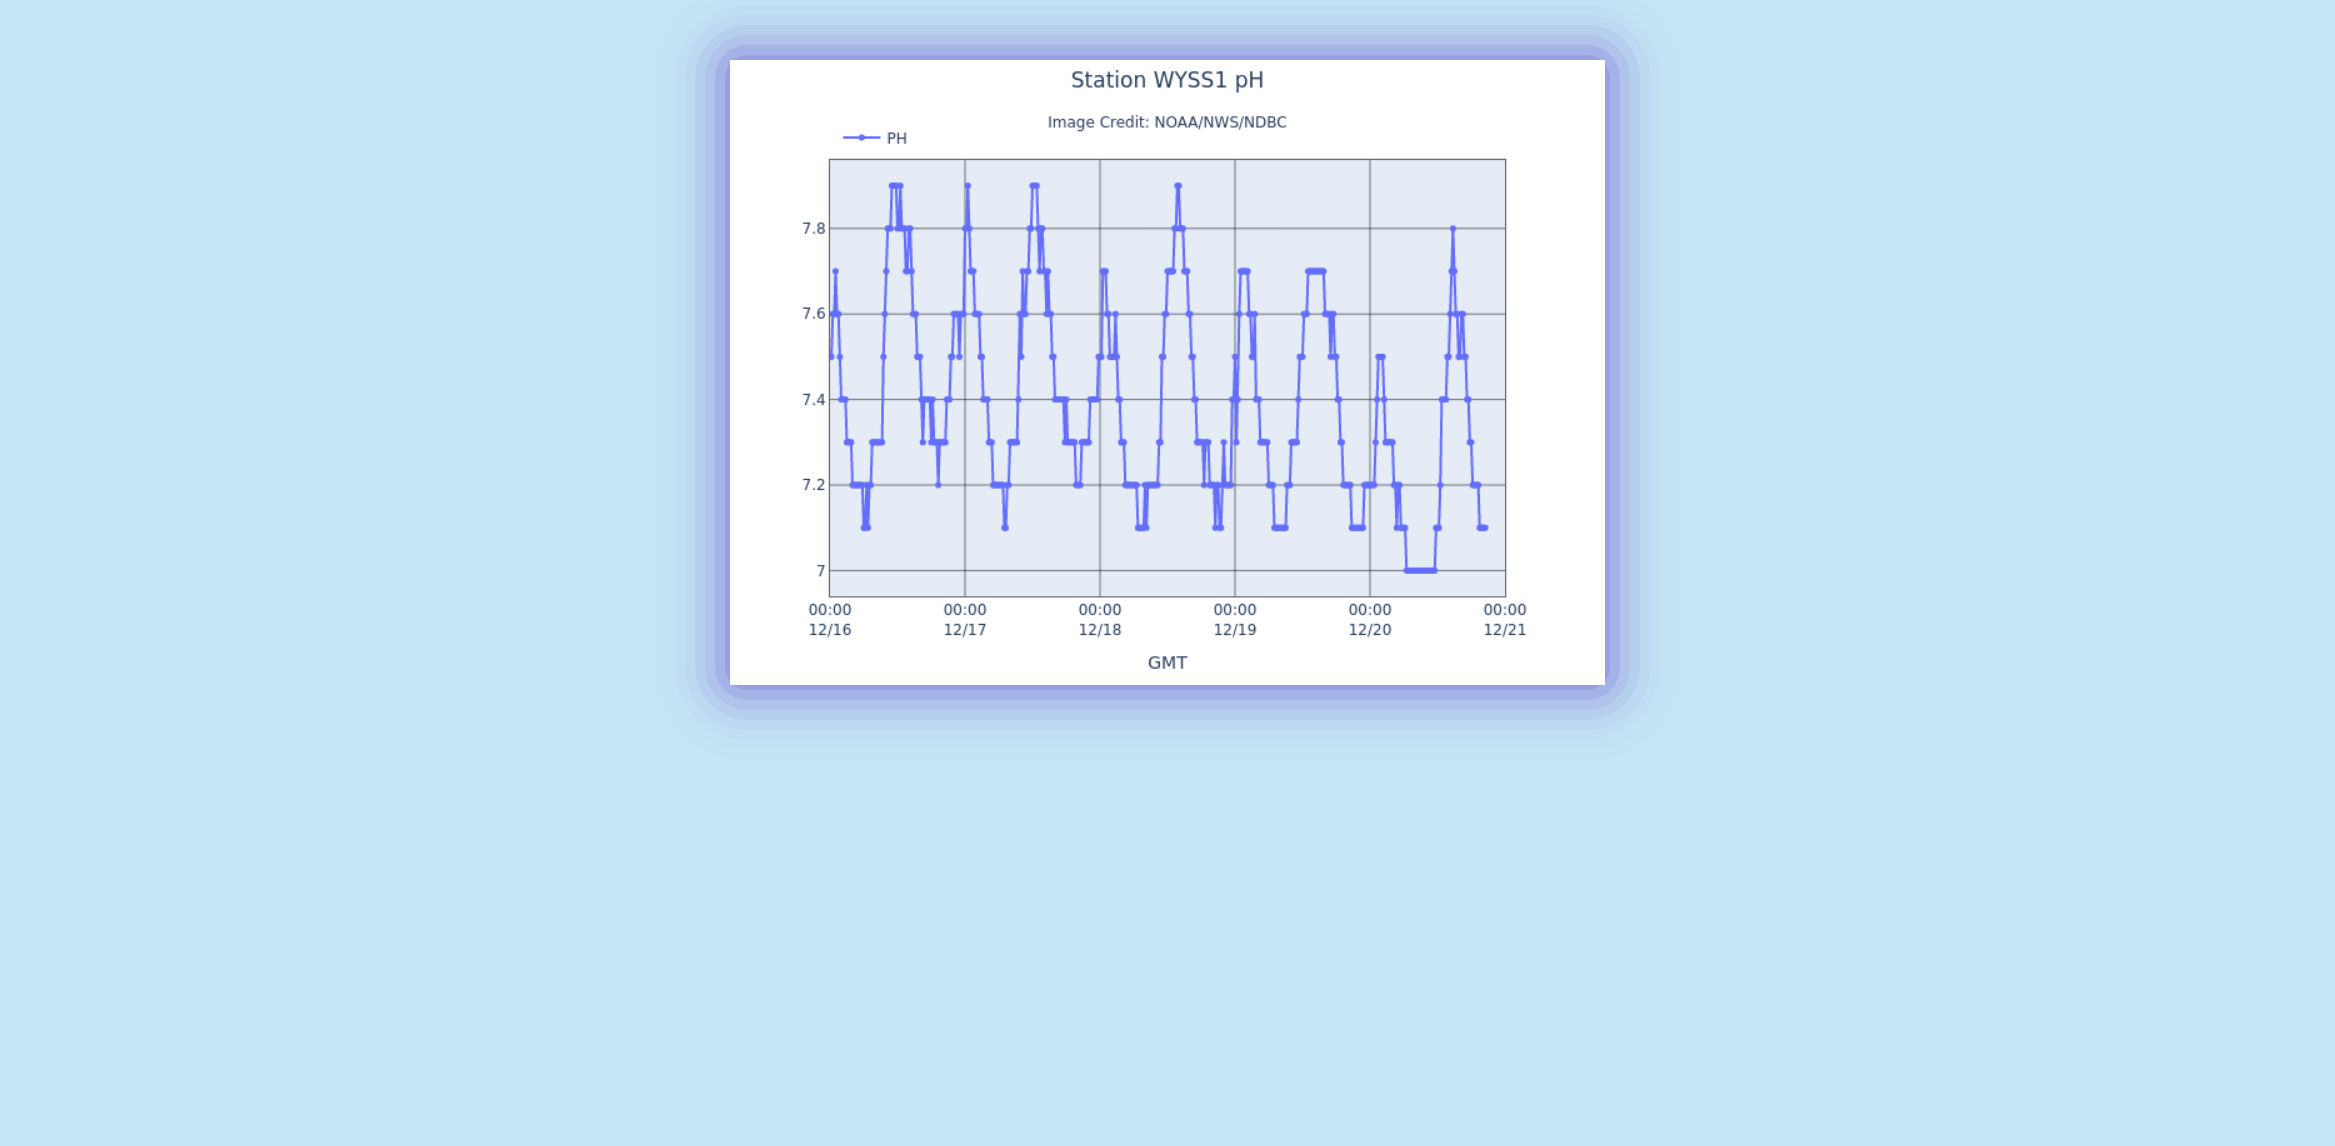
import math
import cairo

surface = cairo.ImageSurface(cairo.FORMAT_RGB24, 2335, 1146)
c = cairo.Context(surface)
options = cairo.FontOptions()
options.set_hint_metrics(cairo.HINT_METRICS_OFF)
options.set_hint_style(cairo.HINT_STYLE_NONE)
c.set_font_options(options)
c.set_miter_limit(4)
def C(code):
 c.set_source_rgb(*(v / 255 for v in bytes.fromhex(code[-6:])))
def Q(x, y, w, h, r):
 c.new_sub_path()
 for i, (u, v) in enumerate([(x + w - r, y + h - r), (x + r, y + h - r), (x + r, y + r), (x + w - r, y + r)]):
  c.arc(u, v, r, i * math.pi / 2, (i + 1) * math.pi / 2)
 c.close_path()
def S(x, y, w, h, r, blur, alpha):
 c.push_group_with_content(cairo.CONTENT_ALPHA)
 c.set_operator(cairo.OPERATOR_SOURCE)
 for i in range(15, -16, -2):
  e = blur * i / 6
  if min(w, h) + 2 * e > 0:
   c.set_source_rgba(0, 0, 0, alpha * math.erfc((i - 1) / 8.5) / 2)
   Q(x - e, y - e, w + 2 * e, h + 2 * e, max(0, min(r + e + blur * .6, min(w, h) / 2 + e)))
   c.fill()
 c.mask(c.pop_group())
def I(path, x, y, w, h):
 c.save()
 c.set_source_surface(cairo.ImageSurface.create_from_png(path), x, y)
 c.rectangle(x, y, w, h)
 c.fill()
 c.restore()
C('c5e5f5')
c.paint()
C('6a5acd')
S(730,60,875,625,0,30,1)
I('1.png',730,60,875,625)
surface.write_to_png('o.png')
